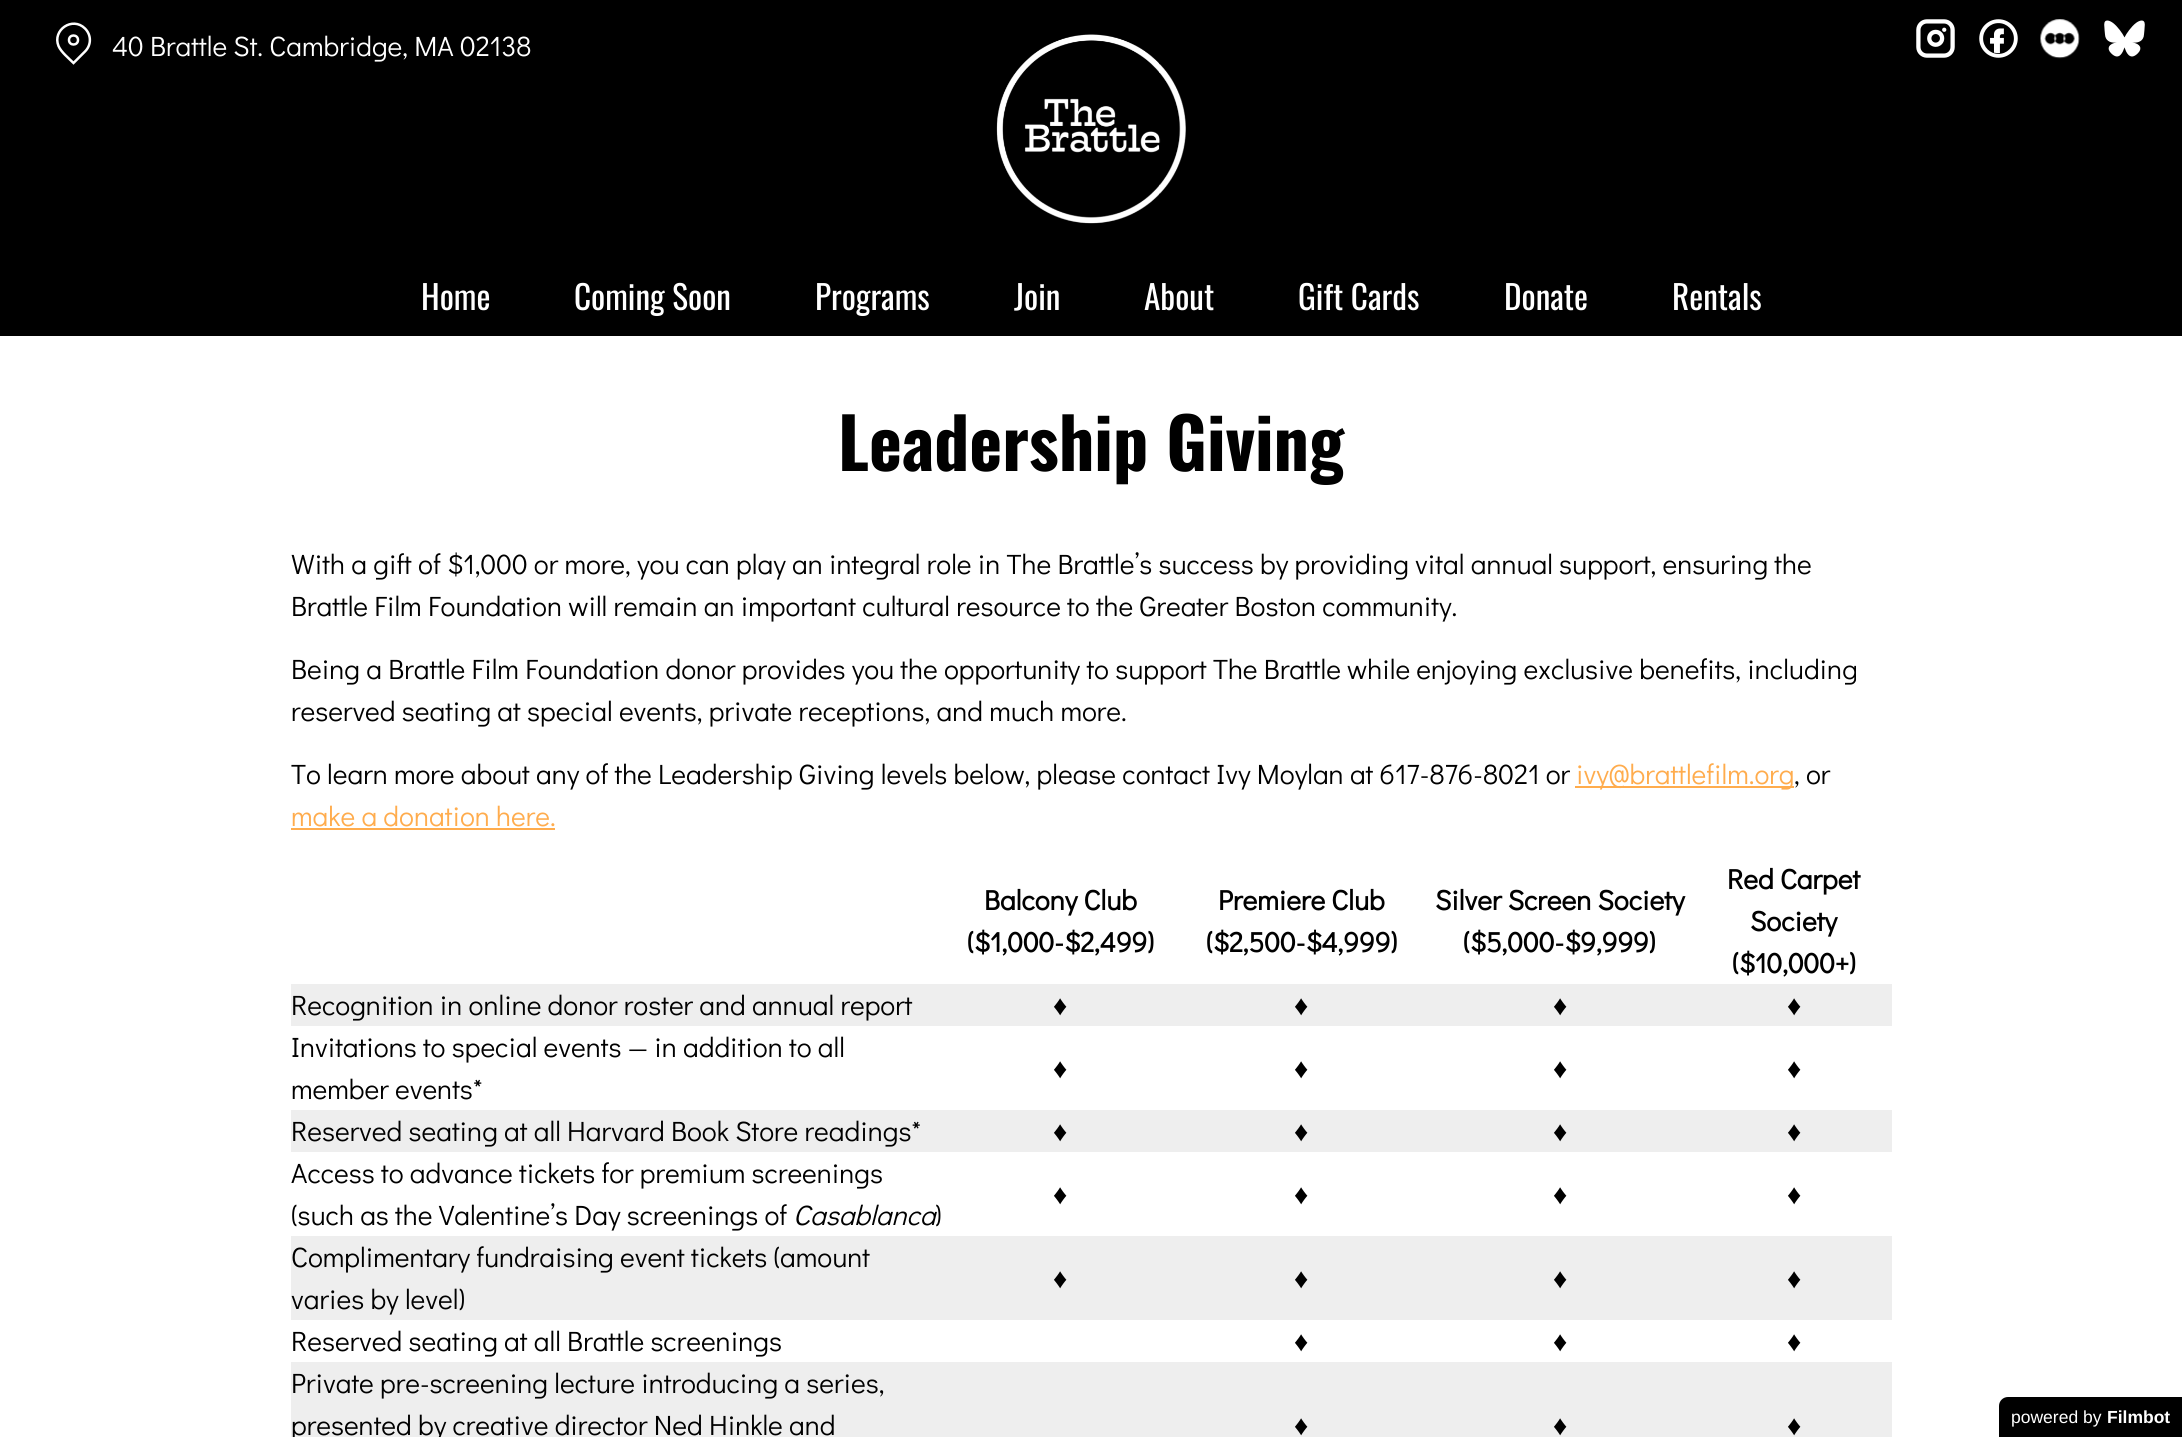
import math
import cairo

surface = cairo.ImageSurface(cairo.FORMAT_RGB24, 2182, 1437)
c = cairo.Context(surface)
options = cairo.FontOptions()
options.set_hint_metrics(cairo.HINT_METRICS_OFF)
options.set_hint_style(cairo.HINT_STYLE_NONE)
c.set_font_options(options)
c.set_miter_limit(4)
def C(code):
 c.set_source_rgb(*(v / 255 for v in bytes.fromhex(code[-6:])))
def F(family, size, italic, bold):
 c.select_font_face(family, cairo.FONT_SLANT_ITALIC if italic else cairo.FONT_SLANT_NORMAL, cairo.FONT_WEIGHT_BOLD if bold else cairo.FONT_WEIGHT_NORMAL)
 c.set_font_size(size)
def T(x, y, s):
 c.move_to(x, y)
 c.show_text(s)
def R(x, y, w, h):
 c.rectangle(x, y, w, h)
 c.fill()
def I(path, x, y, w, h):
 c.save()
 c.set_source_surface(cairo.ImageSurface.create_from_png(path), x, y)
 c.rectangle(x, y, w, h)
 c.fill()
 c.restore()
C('ffffff')
c.paint()
C('000000')
R(0,0,2182,336)
c.new_path()
c.move_to(85,28.5)
c.curve_to(91.5,35,91.5,45,85,51.5)
c.line_to(73.5,63)
c.curve_to(69,58.5,61,52,58.5,46)
c.curve_to(52,30,72.5,16,85,28.5)
c.close_path()
C('ffffff')
c.set_line_width(2.5)
c.stroke()
c.arc(73.5,40,4.5,0,2 * math.pi)
c.stroke()
F('Didact Gothic',28,0,0)
T(112,56,'40 Brattle St. Cambridge, MA 02138')
I('1.png',996,34,190,190)
I('2.png',1916,19,39,39)
I('3.png',1979,19,39,39)
I('4.png',2040,19,40,40)
I('5.png',2104,20,41,37)
F('Oswald',33.25,0,0)
T(421,310,'Home')
T(574,310,'Coming Soon')
T(815,310,'Programs')
T(1014,310,'Join')
T(1144,310,'About')
T(1298,310,'Gift Cards')
T(1504,310,'Donate')
T(1672,310,'Rentals')
F('Oswald',70,0,1)
C('000000')
T(838,471,'Leadership Giving')
F('Didact Gothic',28,0,0)
T(291,574,'With a gift of $1,000 or more, you can play an integral role in The Brattle’s success by providing vital annual support, ensuring the')
T(291,616,'Brattle Film Foundation will remain an important cultural resource to the Greater Boston community.')
T(291,679,'Being a Brattle Film Foundation donor provides you the opportunity to support The Brattle while enjoying exclusive benefits, including')
T(291,721,'reserved seating at special events, private receptions, and much more.')
T(291,784,'To learn more about any of the Leadership Giving levels below, please contact Ivy Moylan at 617-876-8021 or')
C('ffac4d')
R(1575,786,219,2)
T(1576,784,'ivy@brattlefilm.org')
C('000000')
T(1794,784,', or')
C('ffac4d')
T(291,826,'make a donation here.')
R(291,828,264,2)
F('Didact Gothic',28,0,1)
C('000000')
T(984,910,'Balcony Club')
T(967,952,'($1,000-$2,499)')
T(1218,910,'Premiere Club')
T(1206,952,'($2,500-$4,999)')
T(1435,910,'Silver Screen Society')
T(1463,952,'($5,000-$9,999)')
T(1727,889,'Red Carpet')
T(1750,931,'Society')
T(1732,973,'($10,000+)')
C('eeeeee')
R(291,984,1601,42)
F('Didact Gothic',28,0,0)
C('000000')
T(291,1015,'Recognition in online donor roster and annual report')
F('Liberation Serif',28,0,1)
T(1053,1015,'♦')
T(1294,1015,'♦')
T(1553,1015,'♦')
T(1787,1015,'♦')
F('Didact Gothic',28,0,0)
T(291,1057,'Invitations to special events — in addition to all')
T(291,1099,'member events*')
F('Liberation Serif',28,0,1)
T(1053,1078,'♦')
T(1294,1078,'♦')
T(1553,1078,'♦')
T(1787,1078,'♦')
C('eeeeee')
R(291,1110,1601,42)
F('Didact Gothic',28,0,0)
C('000000')
T(291,1141,'Reserved seating at all Harvard Book Store readings*')
F('Liberation Serif',28,0,1)
T(1053,1141,'♦')
T(1294,1141,'♦')
T(1553,1141,'♦')
T(1787,1141,'♦')
F('Didact Gothic',28,0,0)
T(291,1183,'Access to advance tickets for premium screenings')
T(291,1225,'(such as the Valentine’s Day screenings of')
F('Didact Gothic',28,1,0)
T(793,1225,'Casablanca')
F('Didact Gothic',28,0,0)
T(935,1225,')')
F('Liberation Serif',28,0,1)
T(1053,1204,'♦')
T(1294,1204,'♦')
T(1553,1204,'♦')
T(1787,1204,'♦')
C('eeeeee')
R(291,1236,1601,84)
F('Didact Gothic',28,0,0)
C('000000')
T(291,1267,'Complimentary fundraising event tickets (amount')
T(291,1309,'varies by level)')
F('Liberation Serif',28,0,1)
T(1053,1288,'♦')
T(1294,1288,'♦')
T(1553,1288,'♦')
T(1787,1288,'♦')
F('Didact Gothic',28,0,0)
T(291,1351,'Reserved seating at all Brattle screenings')
F('Liberation Serif',28,0,1)
T(1294,1351,'♦')
T(1553,1351,'♦')
T(1787,1351,'♦')
C('eeeeee')
R(291,1362,1601,75)
F('Didact Gothic',28,0,0)
C('000000')
T(291,1393,'Private pre-screening lecture introducing a series,')
T(291,1435,'presented by creative director Ned Hinkle and')
F('Liberation Serif',28,0,1)
T(1294,1435,'♦')
T(1553,1435,'♦')
T(1787,1435,'♦')
c.new_path()
c.move_to(2008,1397)
c.line_to(2182,1397)
c.line_to(2182,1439)
c.line_to(1999,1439)
c.line_to(1999,1406)
c.curve_to(1999,1401,2003,1397,2008,1397)
c.close_path()
c.fill()
F('Liberation Sans',17.5,0,0)
C('ffffff')
T(2011,1423,'powered by')
F('Liberation Sans',17.5,0,1)
T(2107,1423,'Filmbot')
surface.write_to_png('o.png')
